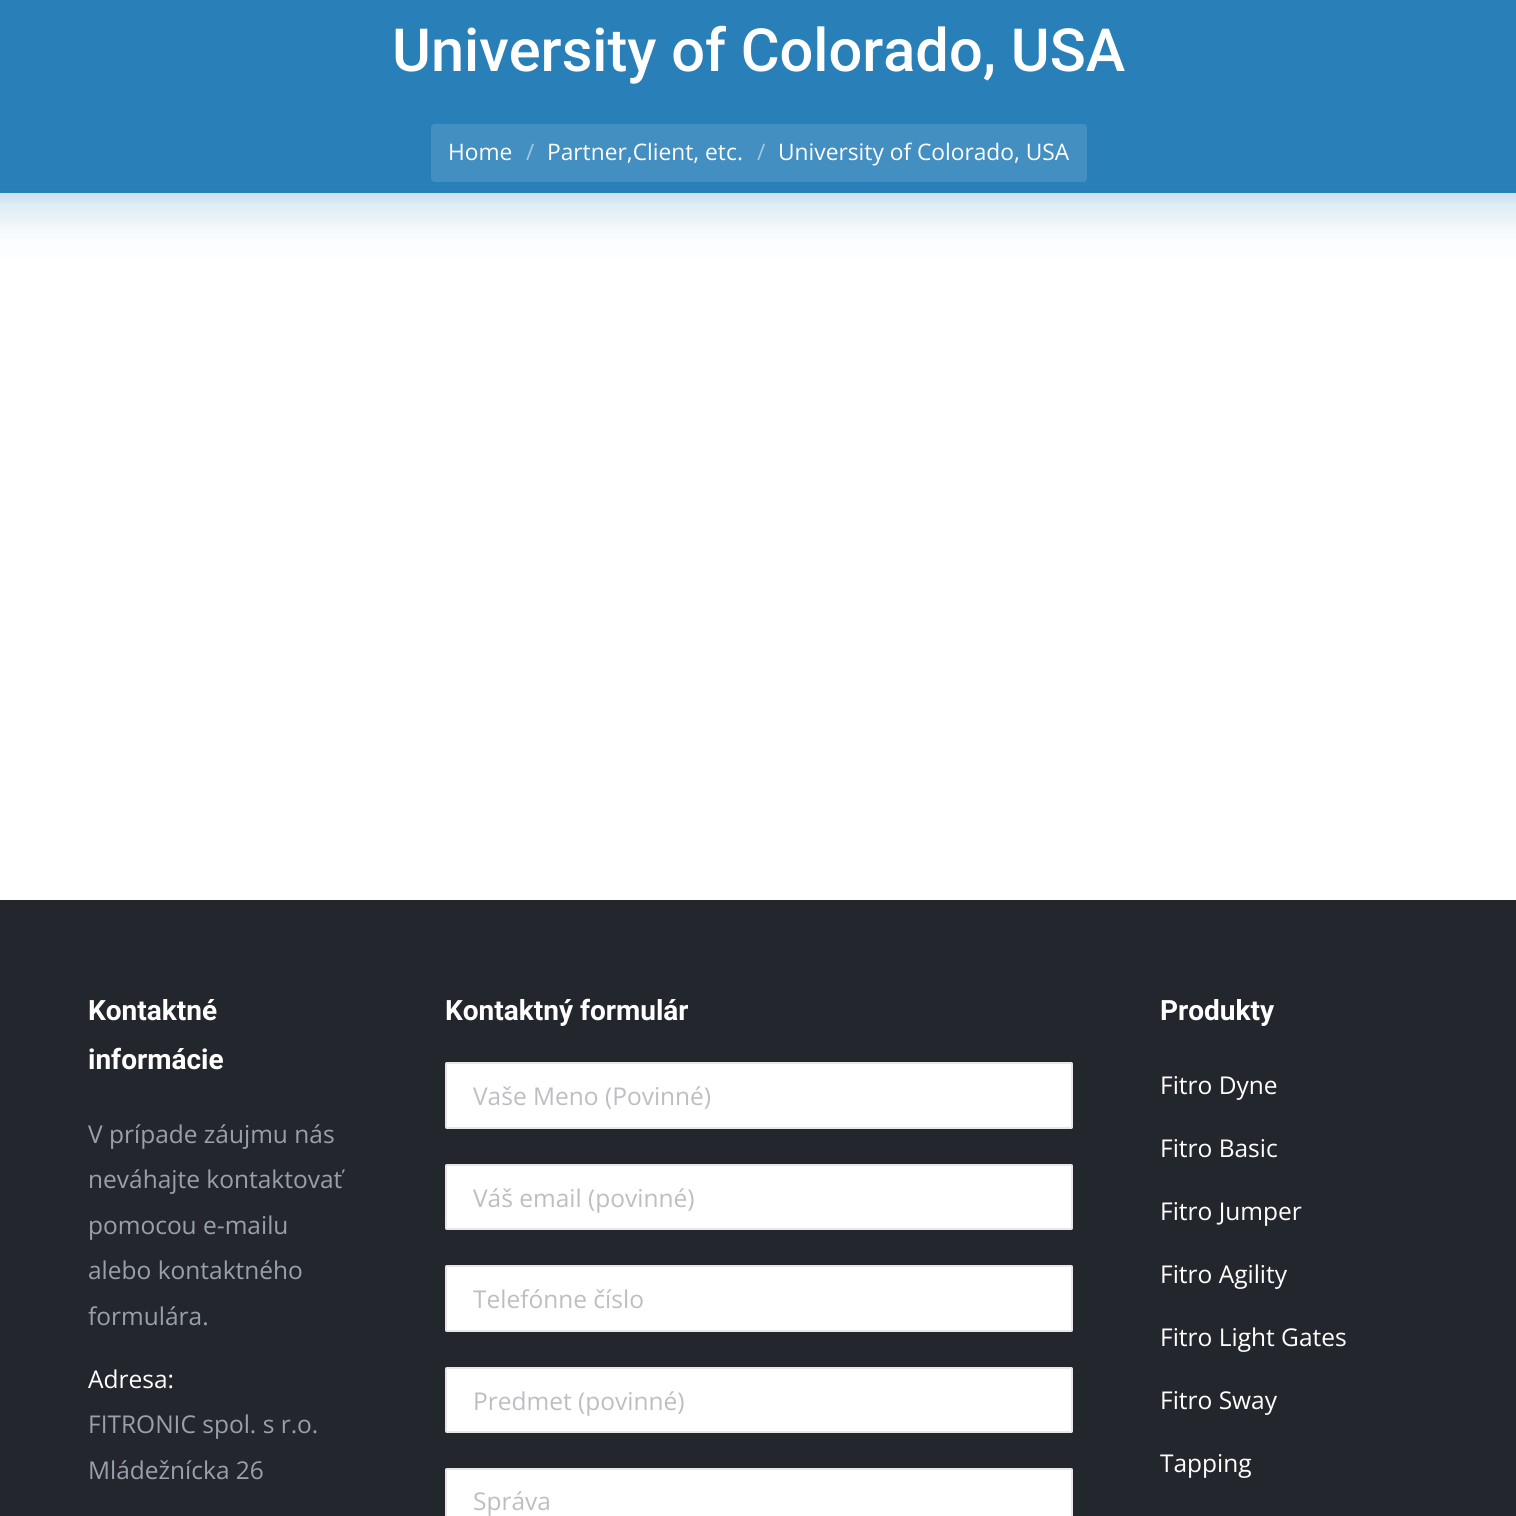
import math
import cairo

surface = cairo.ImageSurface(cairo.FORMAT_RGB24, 1516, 1516)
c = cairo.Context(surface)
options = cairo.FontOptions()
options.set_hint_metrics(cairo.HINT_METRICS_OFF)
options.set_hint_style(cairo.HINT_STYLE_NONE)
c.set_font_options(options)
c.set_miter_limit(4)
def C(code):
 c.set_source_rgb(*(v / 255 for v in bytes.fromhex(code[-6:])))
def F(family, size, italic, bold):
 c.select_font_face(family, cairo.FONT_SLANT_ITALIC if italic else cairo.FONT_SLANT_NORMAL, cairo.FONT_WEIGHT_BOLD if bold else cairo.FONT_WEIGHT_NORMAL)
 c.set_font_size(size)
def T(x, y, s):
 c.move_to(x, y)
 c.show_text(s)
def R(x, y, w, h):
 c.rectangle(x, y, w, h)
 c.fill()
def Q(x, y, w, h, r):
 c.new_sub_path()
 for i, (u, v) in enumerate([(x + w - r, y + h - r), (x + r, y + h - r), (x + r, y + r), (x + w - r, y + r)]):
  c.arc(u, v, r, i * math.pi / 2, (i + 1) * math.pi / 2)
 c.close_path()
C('2980b9')
c.paint()
F('Roboto Medium',59.5,0,0)
C('ffffff')
T(392,71,'University of Colorado, USA')
C('438fc1')
Q(431,124,656,58,4)
c.fill()
F('Open Sans',22.75,0,0)
C('ffffff')
T(448,160,'Home')
C('a1c7e0')
T(526,160,'/')
C('ffffff')
T(547,160,'Partner,Client, etc.')
C('a1c7e0')
T(757,160,'/')
C('ffffff')
T(778,160,'University of Colorado, USA')
C('277cb3')
R(0,191,1516,1)
gradient = cairo.LinearGradient(759,192,759,900)
gradient.add_color_stop_rgba(0,1,1,1,.75)
gradient.add_color_stop_rgba(.01,1,1,1,.8)
gradient.add_color_stop_rgba(.02,1,1,1,.86)
gradient.add_color_stop_rgba(.04,1,1,1,.9)
gradient.add_color_stop_rgba(.05,1,1,1,.94)
gradient.add_color_stop_rgba(.07,1,1,1,.98)
gradient.add_color_stop_rgba(.09,1,1,1,.99)
gradient.add_color_stop_rgba(.1,1,1,1,1)
c.set_source(gradient)
R(0,193,1516,707)
C('23262d')
R(0,900,1516,616)
F('Roboto',28,0,1)
C('ffffff')
T(88,1020,'Kontaktné')
T(88,1069,'informácie')
F('Open Sans',24.5,0,0)
C('9aa0a7')
T(88,1143,'V prípade záujmu nás')
T(88,1188,'neváhajte kontaktovať')
T(88,1234,'pomocou e-mailu')
T(88,1279,'alebo kontaktného')
T(88,1325,'formulára.')
C('ffffff')
T(88,1388,'Adresa:')
C('9aa0a7')
T(88,1433,'FITRONIC spol. s r.o.')
T(88,1479,'Mládežnícka 26')
F('Roboto',28,0,1)
C('ffffff')
T(445,1020,'Kontaktný formulár')
Q(445,1062,628,67,2)
c.fill()
Q(446,1063,626,65,1)
c.set_source_rgba(0.678,0.69,0.714,0.3)
c.stroke()
F('Open Sans',24.5,0,0)
C('bcbec2')
T(473,1105,'Vaše Meno (Povinné)')
C('ffffff')
Q(445,1164,628,66,2)
c.fill()
Q(446,1165,626,64,1)
c.set_source_rgba(0.678,0.69,0.714,0.3)
c.stroke()
C('bcbec2')
T(473,1207,'Váš email (povinné)')
C('ffffff')
Q(445,1265,628,67,2)
c.fill()
Q(446,1266,626,65,1)
c.set_source_rgba(0.678,0.69,0.714,0.3)
c.stroke()
C('bcbec2')
T(473,1308,'Telefónne číslo')
C('ffffff')
Q(445,1367,628,66,2)
c.fill()
Q(446,1368,626,64,1)
c.set_source_rgba(0.678,0.69,0.714,0.3)
c.stroke()
C('bcbec2')
T(473,1410,'Predmet (povinné)')
C('ffffff')
Q(445,1468,628,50,2)
c.fill()
Q(446,1469,626,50,1)
c.set_source_rgba(0.678,0.69,0.714,0.3)
c.stroke()
C('bcbec2')
T(473,1510,'Správa')
F('Roboto',28,0,1)
C('ffffff')
T(1160,1020,'Produkty')
F('Open Sans',24.5,0,0)
T(1160,1094,'Fitro Dyne')
T(1160,1157,'Fitro Basic')
T(1160,1220,'Fitro Jumper')
T(1160,1283,'Fitro Agility')
T(1160,1346,'Fitro Light Gates')
T(1160,1409,'Fitro Sway')
T(1160,1472,'Tapping')
surface.write_to_png('o.png')
